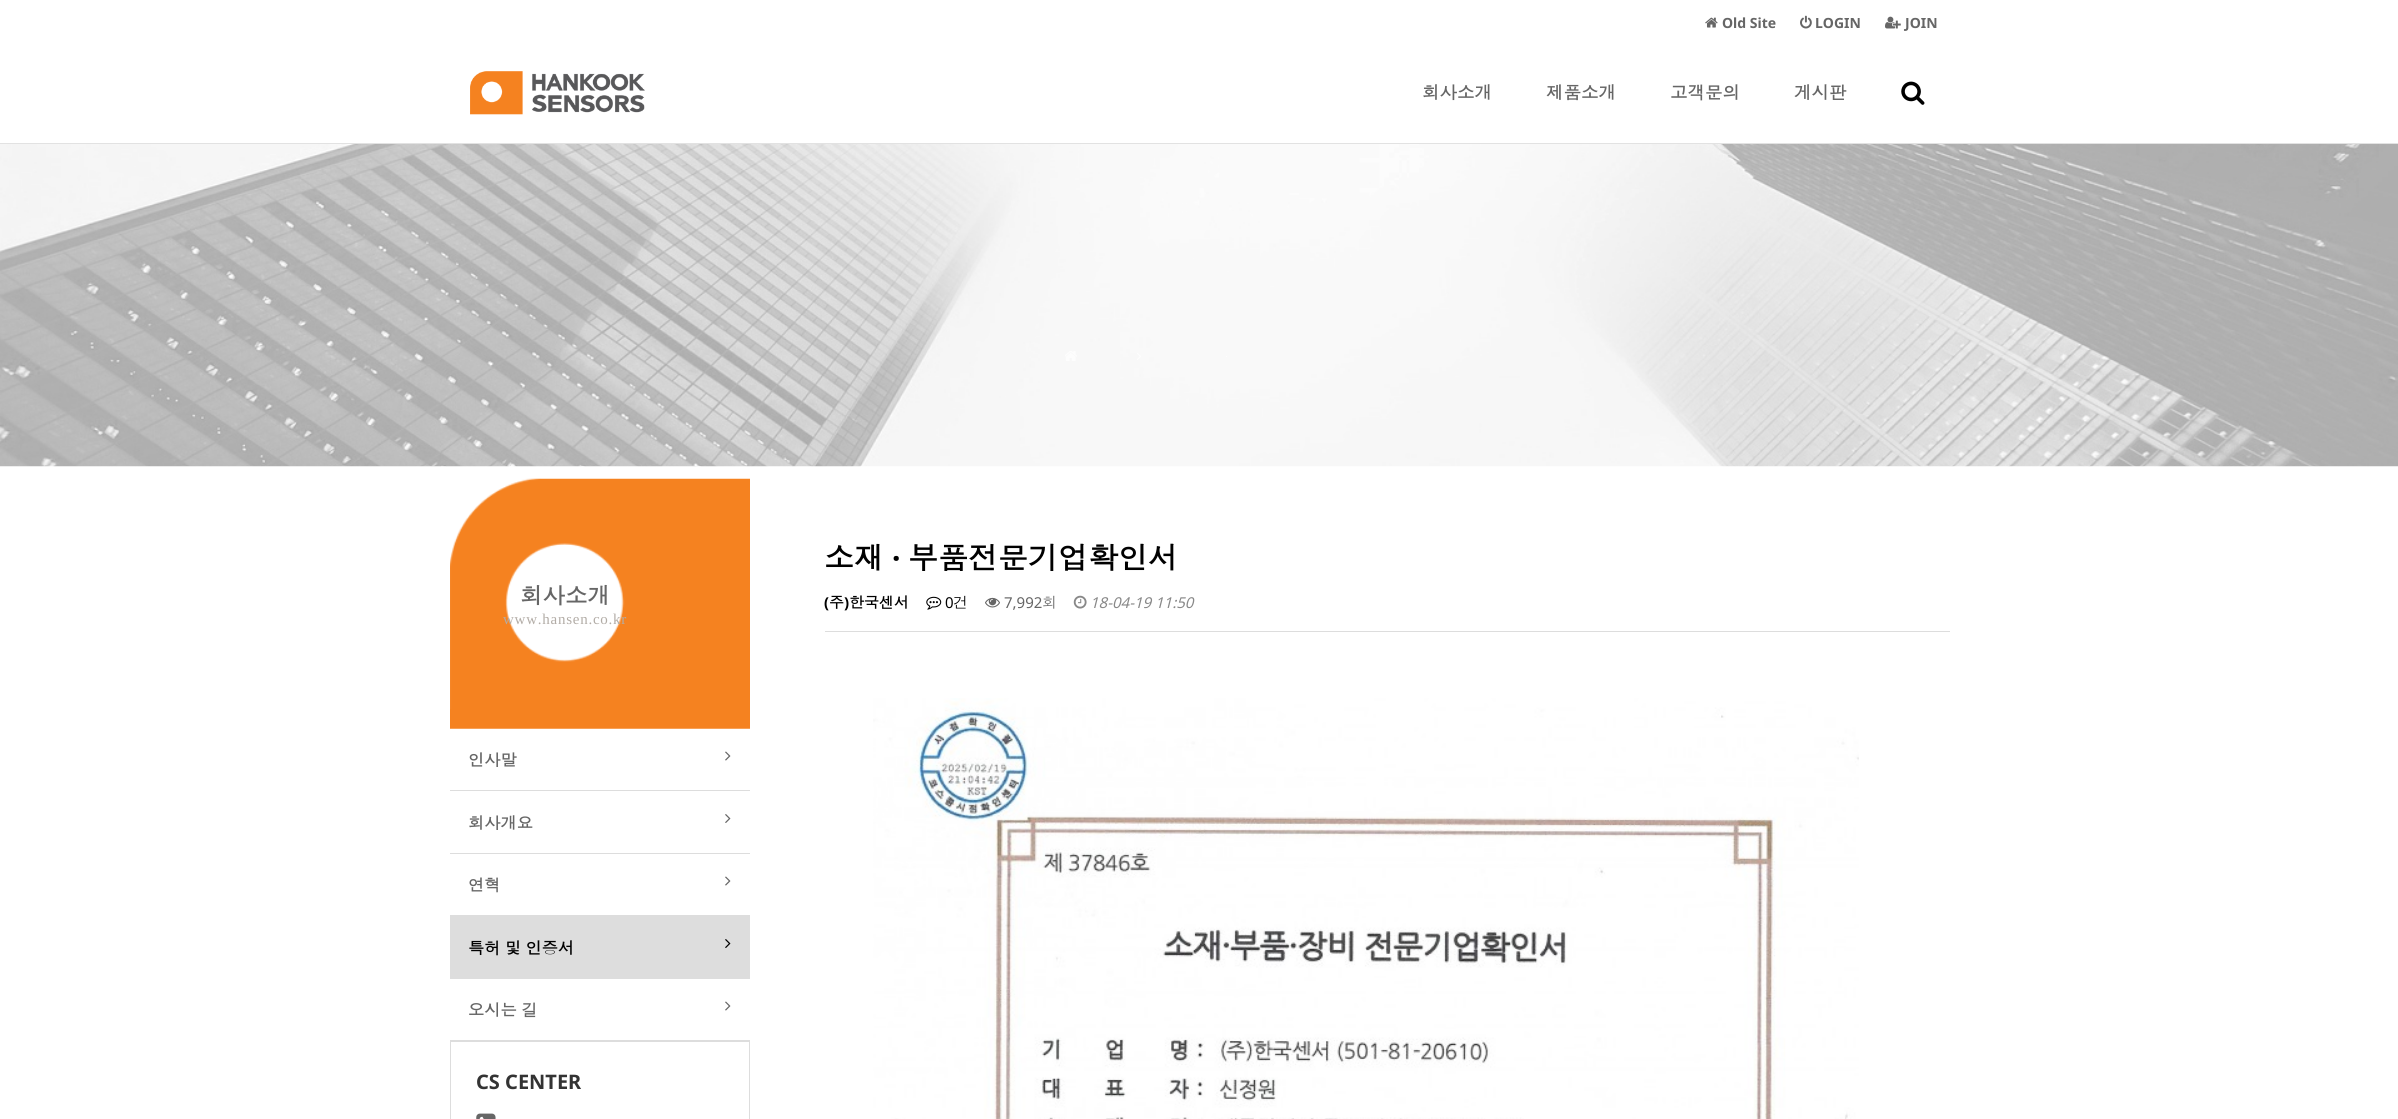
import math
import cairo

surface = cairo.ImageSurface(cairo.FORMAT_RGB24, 2398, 1119)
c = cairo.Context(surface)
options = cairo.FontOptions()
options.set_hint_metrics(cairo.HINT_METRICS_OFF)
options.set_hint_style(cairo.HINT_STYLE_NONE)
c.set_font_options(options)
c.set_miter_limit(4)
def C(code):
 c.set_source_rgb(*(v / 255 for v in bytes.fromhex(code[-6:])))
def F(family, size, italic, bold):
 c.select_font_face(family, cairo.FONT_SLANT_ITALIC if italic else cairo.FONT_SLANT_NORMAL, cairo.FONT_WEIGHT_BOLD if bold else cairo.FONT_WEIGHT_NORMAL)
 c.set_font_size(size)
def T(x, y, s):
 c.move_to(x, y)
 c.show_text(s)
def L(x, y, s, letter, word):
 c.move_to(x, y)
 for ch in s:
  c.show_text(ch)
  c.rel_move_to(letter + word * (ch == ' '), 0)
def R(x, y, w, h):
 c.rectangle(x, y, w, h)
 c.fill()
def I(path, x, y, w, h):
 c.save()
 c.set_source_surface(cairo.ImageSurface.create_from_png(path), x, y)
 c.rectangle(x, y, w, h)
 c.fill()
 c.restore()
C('ffffff')
c.paint()
I('1.png',1705,17,13,11)
F('Noto Sans',14,0,1)
C('666666')
T(1722,28,'Old Site')
I('2.png',1800,15,12,14)
T(1815,28,'LOGIN')
I('3.png',1885,16,16,13)
T(1905,28,'JOIN')
C('e2e2e2')
R(0,143,2398,1)
I('4.png',470,71,175,44)
F('Dotum',17.5,0,1)
C('666666')
T(1422,99,'회사소개')
T(1546,99,'제품소개')
T(1670,99,'고객문의')
T(1794,99,'게시판')
I('5.png',1901,81,24,24)
I('6.png',0,144,2398,323)
I('7.png',1065,351,12,10)
I('8.png',1137,353,4,7)
C('fdfdfd')
R(1226,356,1,1)
F('Dotum',30,0,1)
C('000000')
T(824,569,'소재')
F('Noto Sans',30,0,1)
T(892,569,'·')
F('Dotum',30,0,1)
T(908,569,'부품전문기업확인서')
C('dddddd')
R(825,631,1125,1)
F('Noto Sans',15,0,1)
C('000000')
T(824,608,'(')
F('Dotum',15,0,1)
T(829,608,'주 한국센서')
F('Noto Sans',15,0,1)
T(844,608,')')
I('9.png',926,596,16,14)
F('Noto Sans',15,0,0)
T(945,608,'0')
F('Dotum',15,0,0)
T(953,608,'건')
I('10.png',985,597,15,11)
F('Noto Sans',15,0,0)
C('666666')
T(1004,608,'7,992')
F('Dotum',15,0,0)
T(1042,608,'회')
I('11.png',1073,595,14,14)
F('Noto Sans',15,1,0)
C('888888')
T(1090,608,'18-04-19 11:50')
I('12.png',873,698,986,421)
I('13.png',450,478,300,251)
F('Dotum',22.5,0,1)
C('666666')
T(520,604,'회사소개')
F('Liberation Serif',15,0,0)
C('b2aca6')
L(503,624,'www.hansen.co.kr',.75,0)
C('dddddd')
R(450,790,300,1)
F('Dotum',16.25,0,1)
C('666666')
T(468,766,'인사말')
I('14.png',725,751,6,10)
C('dddddd')
R(450,853,300,1)
C('666666')
T(468,829,'회사개요')
I('15.png',725,814,6,9)
C('dddddd')
R(450,915,300,1)
C('666666')
T(468,891,'연혁')
I('14.png',725,876,6,10)
C('dddddd')
R(450,916,300,63)
C('000000')
L(468,954,'특허 및 인증서',0,-1)
I('16.png',725,939,6,9)
C('dddddd')
R(450,1040,300,1)
C('666666')
L(468,1016,'오시는 길',0,-1)
I('14.png',725,1001,6,10)
c.rectangle(450.5,1041.5,299,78)
C('dddddd')
c.set_line_width(1)
c.stroke()
F('Noto Sans',20,0,1)
C('333333')
T(476,1089,'CS CENTER')
I('17.png',476,1113,20,6)
surface.write_to_png('o.png')
